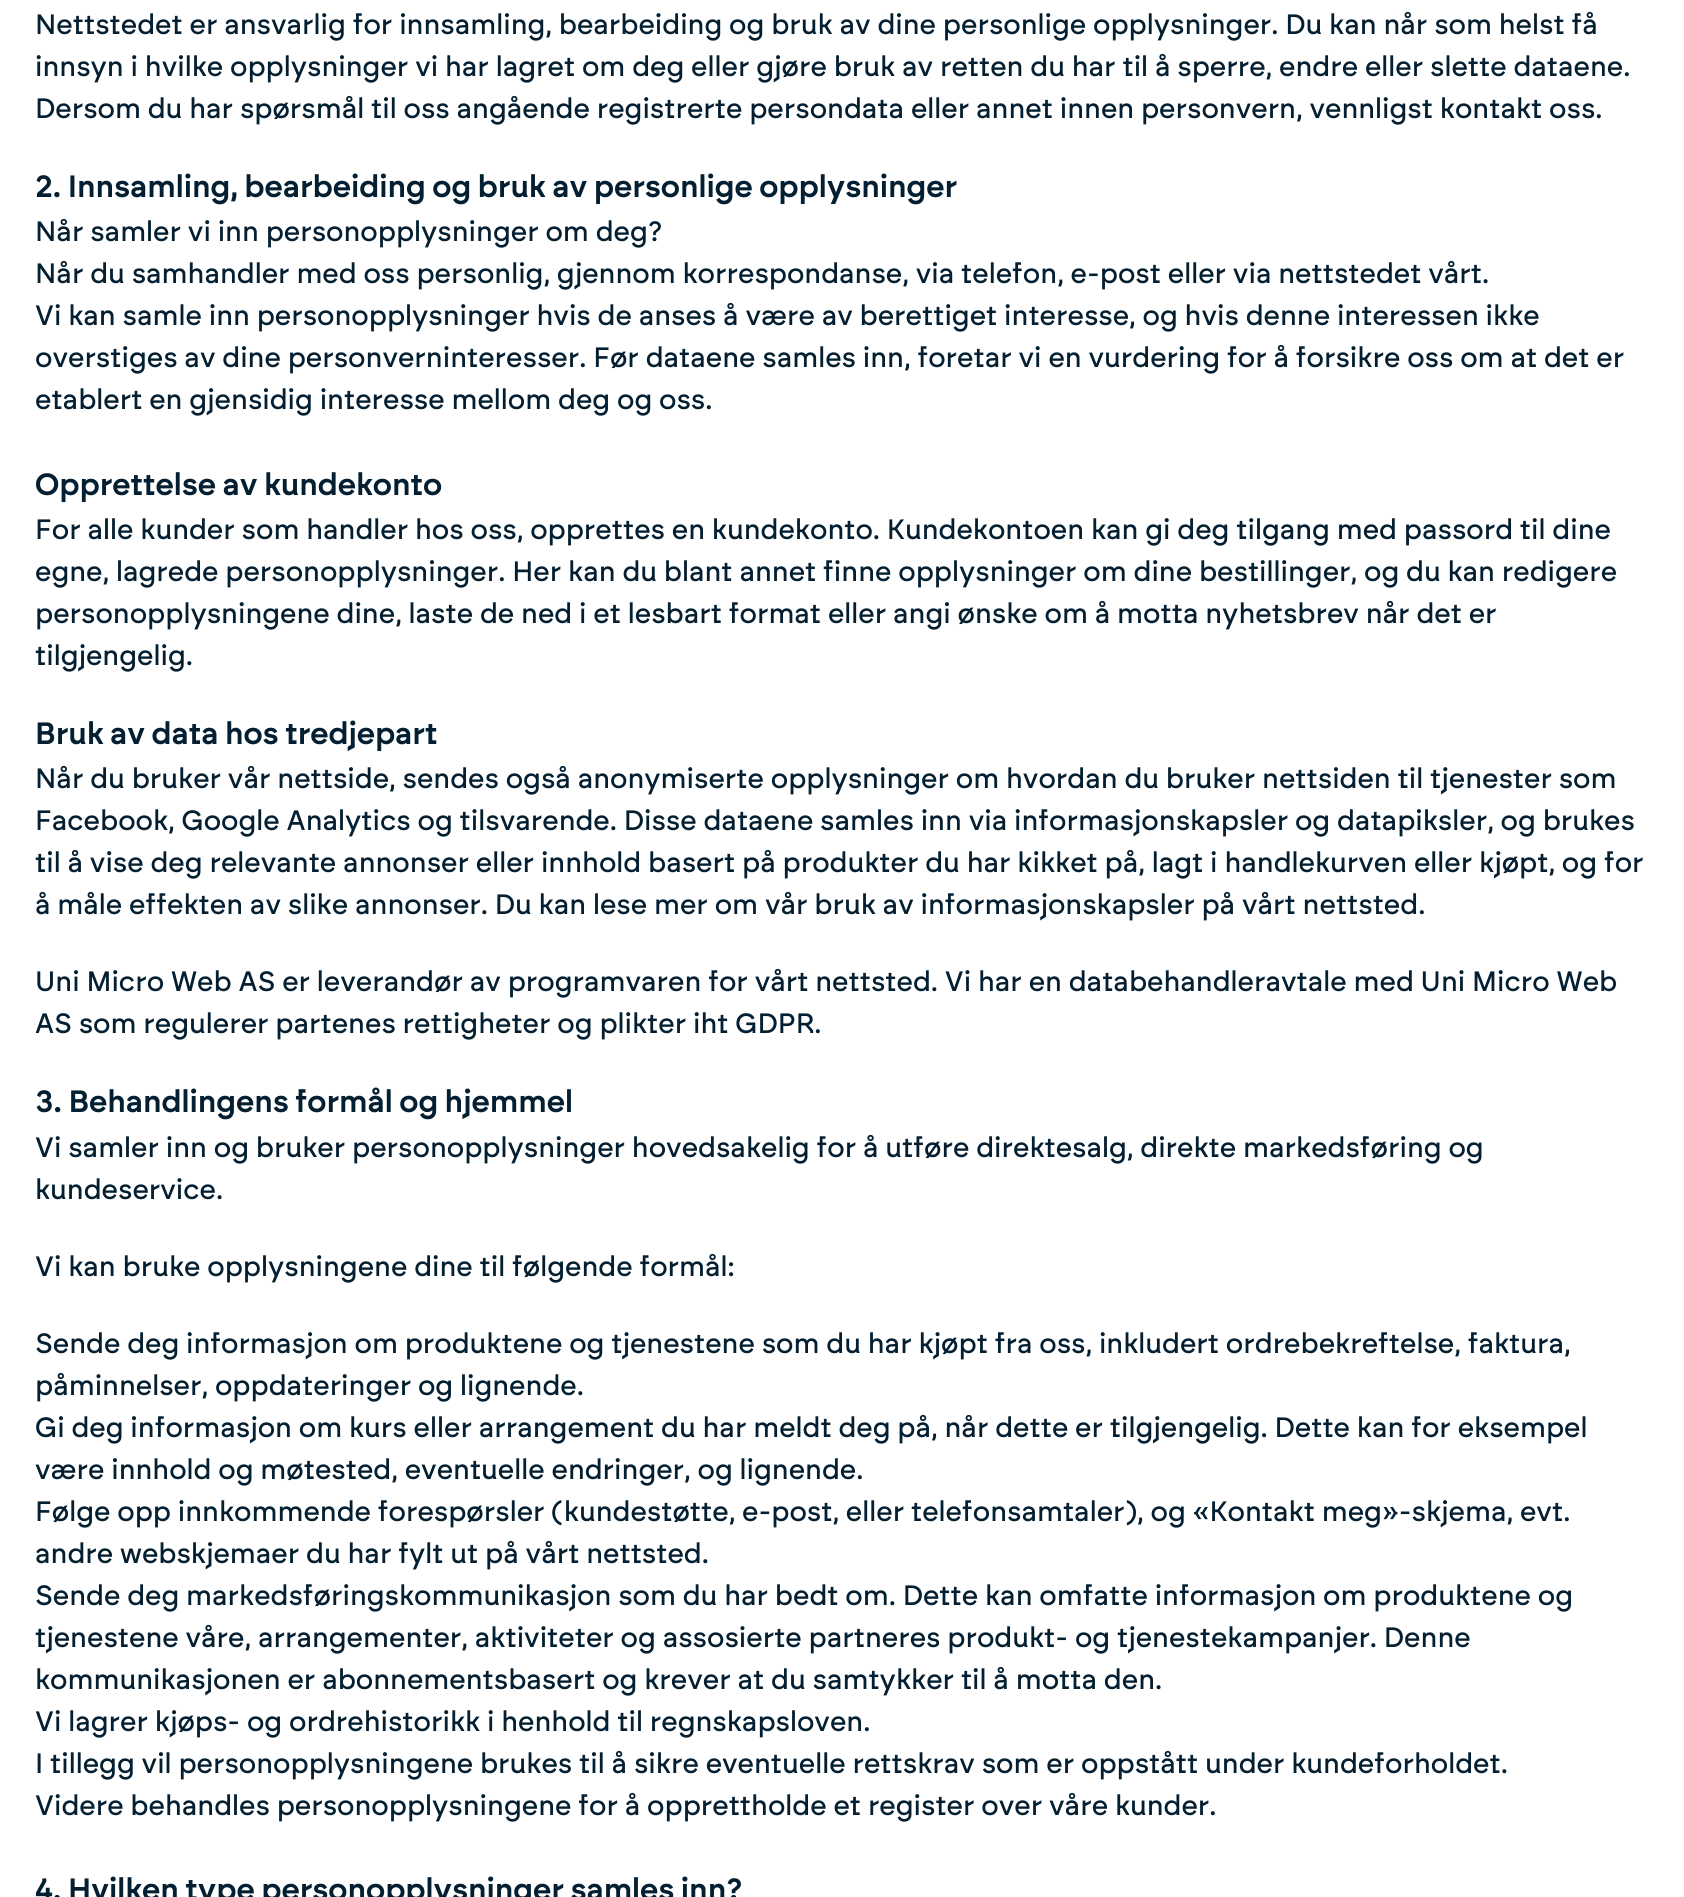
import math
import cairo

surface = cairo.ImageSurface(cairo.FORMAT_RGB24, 1684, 1897)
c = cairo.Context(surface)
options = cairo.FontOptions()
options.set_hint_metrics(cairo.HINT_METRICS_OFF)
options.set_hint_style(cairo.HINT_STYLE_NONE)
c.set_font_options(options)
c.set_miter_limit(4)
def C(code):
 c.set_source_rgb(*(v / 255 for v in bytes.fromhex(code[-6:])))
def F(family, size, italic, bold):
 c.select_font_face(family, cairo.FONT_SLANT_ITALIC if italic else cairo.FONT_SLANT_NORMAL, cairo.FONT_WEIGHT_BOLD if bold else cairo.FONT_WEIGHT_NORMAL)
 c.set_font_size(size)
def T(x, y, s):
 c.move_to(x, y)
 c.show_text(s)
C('ffffff')
c.paint()
F('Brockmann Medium',28,0,0)
C('031f31')
T(35,34,'Nettstedet er ansvarlig for innsamling, bearbeiding og bruk av dine personlige opplysninger. Du kan når som helst få')
T(35,76,'innsyn i hvilke opplysninger vi har lagret om deg eller gjøre bruk av retten du har til å sperre, endre eller slette dataene.')
T(35,118,'Dersom du har spørsmål til oss angående registrerte persondata eller annet innen personvern, vennligst kontakt oss.')
F('Brockmann SemiBold',30.8,0,0)
T(35,197,'2. Innsamling, bearbeiding og bruk av personlige opplysninger')
F('Brockmann Medium',28,0,0)
T(35,241,'Når samler vi inn personopplysninger om deg?')
T(35,283,'Når du samhandler med oss personlig, gjennom korrespondanse, via telefon, e-post eller via nettstedet vårt.')
T(35,325,'Vi kan samle inn personopplysninger hvis de anses å være av berettiget interesse, og hvis denne interessen ikke')
T(35,367,'overstiges av dine personverninteresser. Før dataene samles inn, foretar vi en vurdering for å forsikre oss om at det er')
T(35,409,'etablert en gjensidig interesse mellom deg og oss.')
F('Brockmann SemiBold',30.8,0,0)
T(35,495,'Opprettelse av kundekonto')
F('Brockmann Medium',28,0,0)
T(35,539,'For alle kunder som handler hos oss, opprettes en kundekonto. Kundekontoen kan gi deg tilgang med passord til dine')
T(35,581,'egne, lagrede personopplysninger. Her kan du blant annet finne opplysninger om dine bestillinger, og du kan redigere')
T(35,623,'personopplysningene dine, laste de ned i et lesbart format eller angi ønske om å motta nyhetsbrev når det er')
T(35,665,'tilgjengelig.')
F('Brockmann SemiBold',30.8,0,0)
T(35,744,'Bruk av data hos tredjepart')
F('Brockmann Medium',28,0,0)
T(35,788,'Når du bruker vår nettside, sendes også anonymiserte opplysninger om hvordan du bruker nettsiden til tjenester som')
T(35,830,'Facebook, Google Analytics og tilsvarende. Disse dataene samles inn via informasjonskapsler og datapiksler, og brukes')
T(35,872,'til å vise deg relevante annonser eller innhold basert på produkter du har kikket på, lagt i handlekurven eller kjøpt, og for')
T(35,914,'å måle effekten av slike annonser. Du kan lese mer om vår bruk av informasjonskapsler på vårt nettsted.')
T(35,991,'Uni Micro Web AS er leverandør av programvaren for vårt nettsted. Vi har en databehandleravtale med Uni Micro Web')
T(35,1033,'AS som regulerer partenes rettigheter og plikter iht GDPR.')
F('Brockmann SemiBold',30.8,0,0)
T(35,1112,'3. Behandlingens formål og hjemmel')
F('Brockmann Medium',28,0,0)
T(35,1157,'Vi samler inn og bruker personopplysninger hovedsakelig for å utføre direktesalg, direkte markedsføring og')
T(35,1199,'kundeservice.')
T(35,1276,'Vi kan bruke opplysningene dine til følgende formål:')
T(35,1353,'Sende deg informasjon om produktene og tjenestene som du har kjøpt fra oss, inkludert ordrebekreftelse, faktura,')
T(35,1395,'påminnelser, oppdateringer og lignende.')
T(35,1437,'Gi deg informasjon om kurs eller arrangement du har meldt deg på, når dette er tilgjengelig. Dette kan for eksempel')
T(35,1479,'være innhold og møtested, eventuelle endringer, og lignende.')
T(35,1521,'Følge opp innkommende forespørsler (kundestøtte, e-post, eller telefonsamtaler), og «Kontakt meg»-skjema, evt.')
T(35,1563,'andre webskjemaer du har fylt ut på vårt nettsted.')
T(35,1605,'Sende deg markedsføringskommunikasjon som du har bedt om. Dette kan omfatte informasjon om produktene og')
T(35,1647,'tjenestene våre, arrangementer, aktiviteter og assosierte partneres produkt- og tjenestekampanjer. Denne')
T(35,1689,'kommunikasjonen er abonnementsbasert og krever at du samtykker til å motta den.')
T(35,1731,'Vi lagrer kjøps- og ordrehistorikk i henhold til regnskapsloven.')
T(35,1773,'I tillegg vil personopplysningene brukes til å sikre eventuelle rettskrav som er oppstått under kundeforholdet.')
T(35,1815,'Videre behandles personopplysningene for å opprettholde et register over våre kunder.')
F('Brockmann SemiBold',30.8,0,0)
T(35,1900,'4. Hvilken type personopplysninger samles inn?')
surface.write_to_png('o.png')
